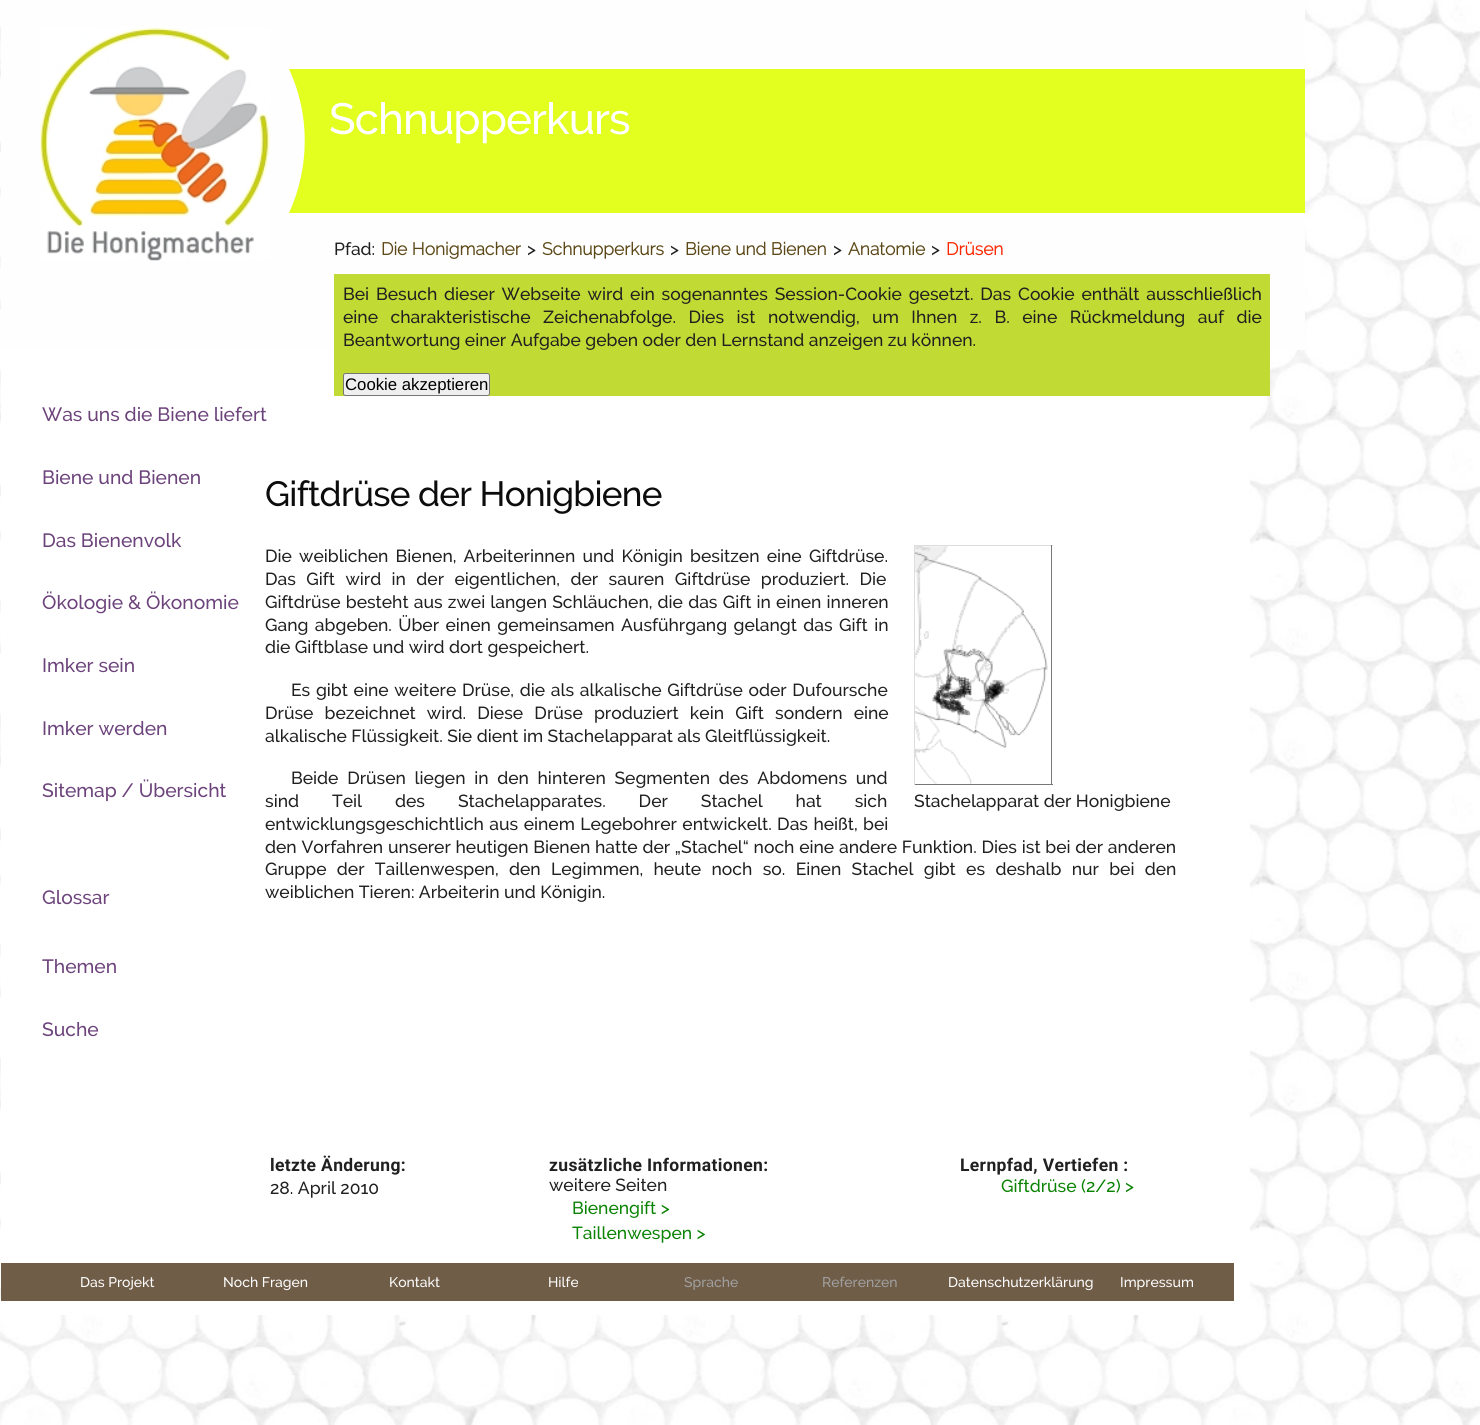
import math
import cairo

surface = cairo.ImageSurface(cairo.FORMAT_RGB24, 1480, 1425)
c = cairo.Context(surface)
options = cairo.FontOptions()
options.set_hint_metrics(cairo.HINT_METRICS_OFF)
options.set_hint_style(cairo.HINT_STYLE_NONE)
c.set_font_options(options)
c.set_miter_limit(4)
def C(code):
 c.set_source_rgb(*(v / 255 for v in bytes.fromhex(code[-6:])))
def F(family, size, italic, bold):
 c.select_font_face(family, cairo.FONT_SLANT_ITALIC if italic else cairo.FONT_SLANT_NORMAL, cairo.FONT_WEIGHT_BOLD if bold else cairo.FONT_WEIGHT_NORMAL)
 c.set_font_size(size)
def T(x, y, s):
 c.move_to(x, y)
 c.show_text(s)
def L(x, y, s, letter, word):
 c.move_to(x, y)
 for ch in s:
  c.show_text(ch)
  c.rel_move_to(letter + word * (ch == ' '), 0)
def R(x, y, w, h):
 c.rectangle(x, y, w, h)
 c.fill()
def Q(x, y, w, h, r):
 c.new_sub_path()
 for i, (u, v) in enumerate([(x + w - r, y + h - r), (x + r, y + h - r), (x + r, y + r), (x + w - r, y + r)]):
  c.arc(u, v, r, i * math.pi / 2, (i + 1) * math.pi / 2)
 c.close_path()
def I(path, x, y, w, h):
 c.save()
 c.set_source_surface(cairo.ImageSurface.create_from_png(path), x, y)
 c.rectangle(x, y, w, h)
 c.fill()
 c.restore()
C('ffffff')
c.paint()
I('1.png',0,0,1480,1425)
C('fefefe')
R(1,0,1304,350)
c.save()
c.rectangle(289,69,1016,144)
c.clip()
C('e2ff1f')
c.new_path()
c.move_to(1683,69)
c.line_to(289,69)
c.curve_to(310,114,310,167,289,213)
c.line_to(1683,213)
c.close_path()
c.fill()
c.restore()
I('2.png',40,27,230,234)
F('Raleway Medium',43.75,0,0)
C('ffffff')
L(329,134,'Schnupperkurs',-.9,0)
R(1,350,1249,965)
F('Raleway Medium',17.5,0,0)
C('202020')
T(334,255,'Pfad:')
F('Raleway',17.5,0,1)
C('5c4816')
T(381,255,'Die Honigmacher')
F('Raleway Medium',17.5,0,0)
C('202020')
T(527,255,'>')
F('Raleway',17.5,0,1)
C('5c4816')
T(542,255,'Schnupperkurs')
F('Raleway Medium',17.5,0,0)
C('202020')
T(670,255,'>')
F('Raleway',17.5,0,1)
C('5c4816')
T(685,255,'Biene und Bienen')
F('Raleway Medium',17.5,0,0)
C('202020')
T(833,255,'>')
F('Raleway',17.5,0,1)
C('5c4816')
T(848,255,'Anatomie')
F('Raleway Medium',17.5,0,0)
C('202020')
T(931,255,'>')
F('Raleway',17.5,0,1)
C('fb2700')
T(946,255,'Drüsen')
C('c1da34')
R(334,274,936,122)
F('Raleway Medium',17.5,0,0)
C('202020')
L(343,300,'Bei Besuch dieser Webseite wird ein sogenanntes Session-Cookie gesetzt. Das Cookie enthält ausschließlich',0,2.4)
L(343,323,'eine charakteristische Zeichenabfolge. Dies ist notwendig, um Ihnen z. B. eine Rückmeldung auf die',0,8.1)
T(343,346,'Beantwortung einer Aufgabe geben oder den Lernstand anzeigen zu können.')
C('efefef')
Q(343.5,373.5,146,22,2)
c.fill_preserve()
C('767676')
c.set_line_width(1)
c.stroke()
F('Liberation Sans',16.75,0,0)
C('000000')
T(345,390,'Cookie akzeptieren')
F('Raleway Medium',19.25,0,0)
C('6c437b')
T(42,421,'Was uns die Biene liefert')
T(42,484,'Biene und Bienen')
T(42,547,'Das Bienenvolk')
T(42,609,'Ökologie & Ökonomie')
T(42,672,'Imker sein')
T(42,735,'Imker werden')
T(42,797,'Sitemap / Übersicht')
T(42,904,'Glossar')
T(42,973,'Themen')
T(42,1036,'Suche')
F('Raleway Medium',35,0,0)
C('0c0c0c')
L(265,506,'Giftdrüse der Honigbiene',-.7,0)
F('Raleway Medium',17.5,0,0)
C('202020')
L(265,562,'Die weiblichen Bienen, Arbeiterinnen und Königin besitzen eine Giftdrüse.',0,2.75)
L(265,585,'Das Gift wird in der eigentlichen, der sauren Giftdrüse produziert. Die',0,6)
L(265,608,'Giftdrüse besteht aus zwei langen Schläuchen, die das Gift in einen inneren',0,.75)
L(265,631,'Gang abgeben. Über einen gemeinsamen Ausführgang gelangt das Gift in',0,2)
T(265,653,'die Giftblase und wird dort gespeichert.')
L(291,696,'Es gibt eine weitere Drüse, die als alkalische Giftdrüse oder Dufoursche',0,1.25)
L(265,719,'Drüse bezeichnet wird. Diese Drüse produziert kein Gift sondern eine',0,6.75)
T(265,742,'alkalische Flüssigkeit. Sie dient im Stachelapparat als Gleitflüssigkeit.')
L(291,784,'Beide Drüsen liegen in den hinteren Segmenten des Abdomens und',0,4.25)
L(265,807,'sind Teil des Stachelapparates. Der Stachel hat sich',0,28.5)
L(265,830,'entwicklungsgeschichtlich aus einem Legebohrer entwickelt. Das heißt, bei',0,1)
L(265,853,'den Vorfahren unserer heutigen Bienen hatte der „Stachel“ noch eine andere Funktion. Dies ist bei der anderen',0,.3)
L(265,875,'Gruppe der Taillenwespen, den Legimmen, heute noch so. Einen Stachel gibt es deshalb nur bei den',0,5.9)
T(265,898,'weiblichen Tieren: Arbeiterin und Königin.')
C('dddddd')
R(914,545,139,1)
C('777777')
R(1051,545,1,240)
R(914,784,139,1)
C('dddddd')
R(914,545,1,240)
I('3.png',915,546,133,238)
C('202020')
T(914,807,'Stachelapparat der Honigbiene')
F('Roboto',17.5,0,1)
L(270,1171,'letzte Änderung:',.35,0)
F('Raleway Medium',17.5,0,0)
T(270,1194,'28. April 2010')
F('Roboto',17.5,0,1)
L(549,1171,'zusätzliche Informationen:',.35,0)
F('Raleway Medium',17.5,0,0)
T(549,1191,'weitere Seiten')
C('0a8303')
T(572,1214,'Bienengift >')
T(572,1239,'Taillenwespen >')
F('Roboto',17.5,0,1)
C('202020')
L(960,1171,'Lernpfad, Vertiefen :',.35,0)
F('Raleway Medium',17.5,0,0)
C('0a8303')
T(1001,1192,'Giftdrüse (2/2) >')
C('6f5d48')
R(1,1263,1233,38)
F('Raleway Medium',14,0,0)
C('ffffff')
T(80,1287,'Das Projekt')
T(223,1287,'Noch Fragen')
T(389,1287,'Kontakt')
T(548,1287,'Hilfe')
C('a0a0a0')
T(684,1287,'Sprache')
T(822,1287,'Referenzen')
C('ffffff')
T(948,1287,'Datenschutzerklärung')
T(1120,1287,'Impressum')
surface.write_to_png('o.png')
